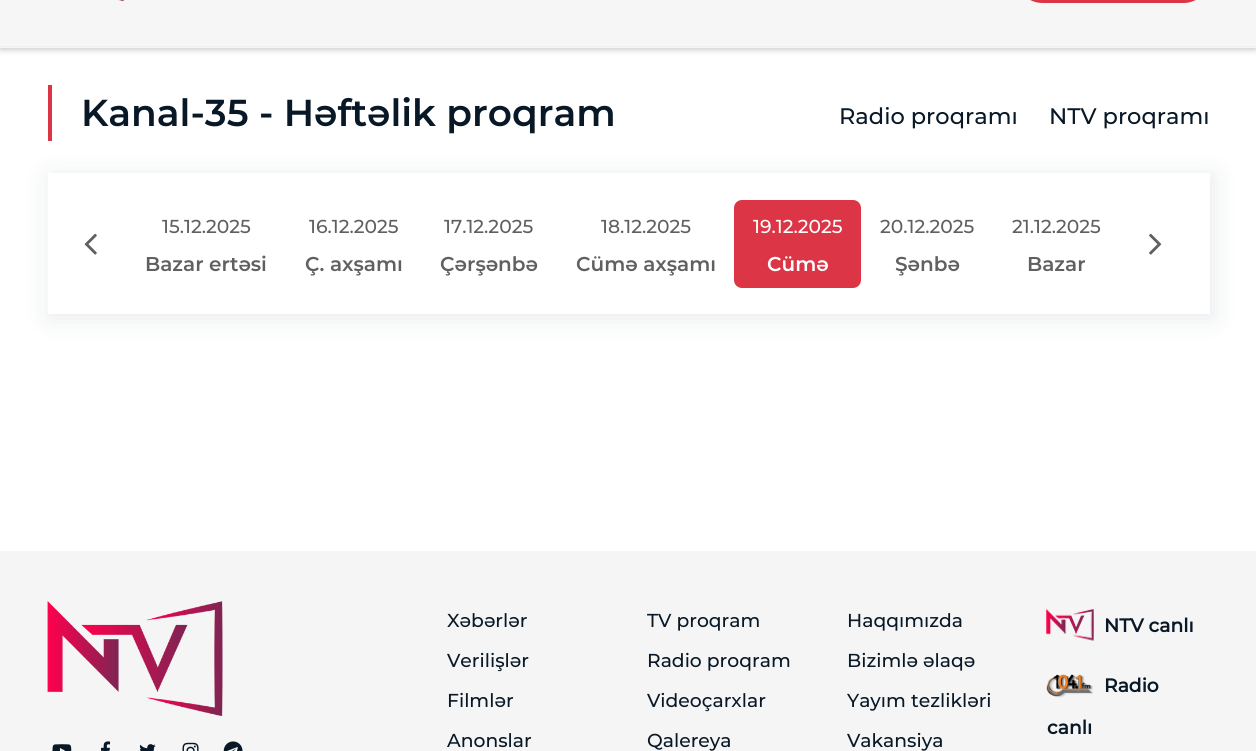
import math
import cairo

surface = cairo.ImageSurface(cairo.FORMAT_RGB24, 1256, 751)
c = cairo.Context(surface)
options = cairo.FontOptions()
options.set_hint_metrics(cairo.HINT_METRICS_OFF)
options.set_hint_style(cairo.HINT_STYLE_NONE)
c.set_font_options(options)
c.set_miter_limit(4)
def C(code):
 c.set_source_rgb(*(v / 255 for v in bytes.fromhex(code[-6:])))
def F(family, size, italic, bold):
 c.select_font_face(family, cairo.FONT_SLANT_ITALIC if italic else cairo.FONT_SLANT_NORMAL, cairo.FONT_WEIGHT_BOLD if bold else cairo.FONT_WEIGHT_NORMAL)
 c.set_font_size(size)
def T(x, y, s):
 c.move_to(x, y)
 c.show_text(s)
def R(x, y, w, h):
 c.rectangle(x, y, w, h)
 c.fill()
def Q(x, y, w, h, r):
 c.new_sub_path()
 for i, (u, v) in enumerate([(x + w - r, y + h - r), (x + r, y + h - r), (x + r, y + r), (x + w - r, y + r)]):
  c.arc(u, v, r, i * math.pi / 2, (i + 1) * math.pi / 2)
 c.close_path()
def S(x, y, w, h, r, blur, alpha):
 c.push_group_with_content(cairo.CONTENT_ALPHA)
 c.set_operator(cairo.OPERATOR_SOURCE)
 for i in range(15, -16, -2):
  e = blur * i / 6
  if min(w, h) + 2 * e > 0:
   c.set_source_rgba(0, 0, 0, alpha * math.erfc((i - 1) / 8.5) / 2)
   Q(x - e, y - e, w + 2 * e, h + 2 * e, max(0, min(r + e + blur * .6, min(w, h) / 2 + e)))
   c.fill()
 c.mask(c.pop_group())
def I(path, x, y, w, h):
 c.save()
 c.set_source_surface(cairo.ImageSurface.create_from_png(path), x, y)
 c.rectangle(x, y, w, h)
 c.fill()
 c.restore()
C('ffffff')
c.paint()
C('000000')
S(0,-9,1256,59,0,3,.2)
C('f6f6f6')
R(0,0,1256,48)
C('f0f0f0')
R(0,46,1256,1)
I('1.png',118,0,6,1)
C('dc3545')
Q(1016,-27,194,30,26.5)
c.fill()
c.save()
c.set_fill_rule(cairo.FILL_RULE_EVEN_ODD)
c.new_path()
c.move_to(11,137)
c.line_to(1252,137)
c.line_to(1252,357)
c.line_to(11,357)
c.close_path()
c.move_to(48,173)
c.line_to(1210,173)
c.line_to(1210,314)
c.line_to(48,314)
c.close_path()
c.clip()
C('081827')
S(50,176,1163,142,0,12.5,.1)
c.restore()
R(48,85,4,56)
F('Montserrat SemiBold',37.5,0,0)
C('081827')
T(81,126,'Kanal-35 - Həftəlik proqram')
F('Montserrat Medium',22.5,0,0)
T(839,124,'Radio proqramı')
T(1049,124,'NTV proqramı')
I('2.png',84,233,13,22)
F('Montserrat Medium',18.75,0,0)
C('606060')
T(162,233,'15.12.2025')
F('Montserrat SemiBold',20,0,0)
T(145,271,'Bazar ertəsi')
F('Montserrat Medium',18.75,0,0)
T(309,233,'16.12.2025')
F('Montserrat SemiBold',20,0,0)
T(305,271,'Ç. axşamı')
F('Montserrat Medium',18.75,0,0)
T(444,233,'17.12.2025')
F('Montserrat SemiBold',20,0,0)
T(440,271,'Çərşənbə')
F('Montserrat Medium',18.75,0,0)
T(601,233,'18.12.2025')
F('Montserrat SemiBold',20,0,0)
T(576,271,'Cümə axşamı')
C('dc3545')
Q(734,200,127,88,8)
c.fill()
F('Montserrat Medium',18.75,0,0)
C('ffffff')
T(753,233,'19.12.2025')
F('Montserrat SemiBold',20,0,0)
T(767,271,'Cümə')
F('Montserrat Medium',18.75,0,0)
C('606060')
T(880,233,'20.12.2025')
F('Montserrat SemiBold',20,0,0)
T(895,271,'Şənbə')
F('Montserrat Medium',18.75,0,0)
T(1012,233,'21.12.2025')
F('Montserrat SemiBold',20,0,0)
T(1027,271,'Bazar')
I('3.png',1149,233,13,22)
C('f5f5f5')
R(0,551,1256,200)
I('4.png',47,601,176,115)
I('5.png',52,744,20,7)
I('6.png',101,741,10,10)
I('7.png',139,744,17,7)
I('8.png',182,742,17,9)
I('9.png',223,741,20,10)
F('Montserrat Medium',18.75,0,0)
C('081827')
T(447,627,'Xəbərlər')
T(447,667,'Verilişlər')
T(447,707,'Filmlər')
T(447,747,'Anonslar')
T(647,627,'TV proqram')
T(647,667,'Radio proqram')
T(647,707,'Videoçarxlar')
T(647,747,'Qalereya')
T(847,627,'Haqqımızda')
T(847,667,'Bizimlə əlaqə')
T(847,707,'Yayım tezlikləri')
T(847,747,'Vakansiya')
I('10.png',1046,608,48,33)
F('Montserrat',18.75,0,1)
T(1104,632,'NTV canlı')
I('11.png',1046,674,47,24)
T(1104,692,'Radio')
T(1047,734,'canlı')
surface.write_to_png('o.png')
